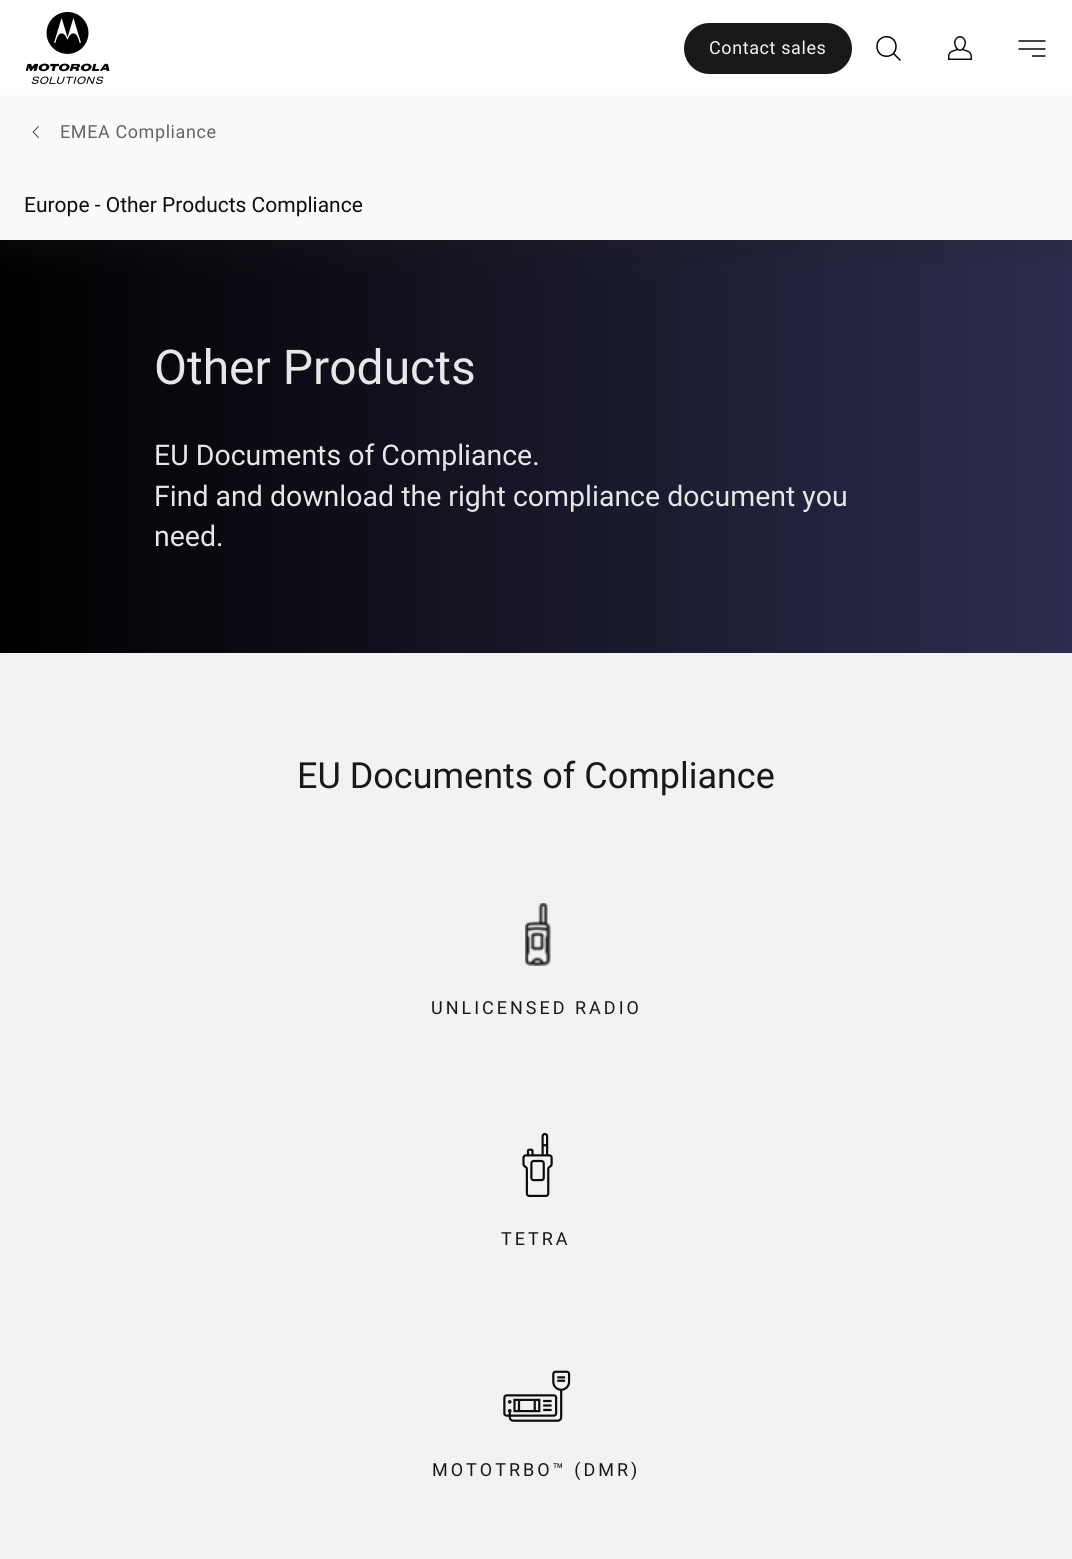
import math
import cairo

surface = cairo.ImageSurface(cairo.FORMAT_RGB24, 1072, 1559)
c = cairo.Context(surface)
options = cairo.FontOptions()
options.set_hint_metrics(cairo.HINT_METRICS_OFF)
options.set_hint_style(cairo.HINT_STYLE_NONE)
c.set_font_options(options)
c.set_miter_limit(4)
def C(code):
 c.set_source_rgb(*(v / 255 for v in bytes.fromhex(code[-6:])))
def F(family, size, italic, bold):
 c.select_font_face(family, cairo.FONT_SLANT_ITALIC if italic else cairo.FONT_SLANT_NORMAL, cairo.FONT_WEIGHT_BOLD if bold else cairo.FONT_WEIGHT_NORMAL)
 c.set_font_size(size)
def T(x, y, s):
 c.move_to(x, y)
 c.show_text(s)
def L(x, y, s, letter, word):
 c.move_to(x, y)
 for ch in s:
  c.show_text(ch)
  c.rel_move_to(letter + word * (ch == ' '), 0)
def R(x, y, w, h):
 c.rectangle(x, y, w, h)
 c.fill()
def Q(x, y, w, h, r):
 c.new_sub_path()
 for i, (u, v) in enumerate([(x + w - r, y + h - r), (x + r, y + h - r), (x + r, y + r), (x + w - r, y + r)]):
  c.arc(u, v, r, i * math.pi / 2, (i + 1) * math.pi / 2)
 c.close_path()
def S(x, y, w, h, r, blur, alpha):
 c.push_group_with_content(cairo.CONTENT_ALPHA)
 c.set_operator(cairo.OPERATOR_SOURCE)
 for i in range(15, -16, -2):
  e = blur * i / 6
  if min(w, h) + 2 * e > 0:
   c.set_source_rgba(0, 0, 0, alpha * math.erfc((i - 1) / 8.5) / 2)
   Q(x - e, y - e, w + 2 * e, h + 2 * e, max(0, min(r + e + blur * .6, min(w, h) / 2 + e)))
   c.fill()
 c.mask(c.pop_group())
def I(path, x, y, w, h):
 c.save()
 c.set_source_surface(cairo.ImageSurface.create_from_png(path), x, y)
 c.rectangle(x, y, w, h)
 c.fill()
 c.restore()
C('ffffff')
c.paint()
gradient = cairo.LinearGradient(0,446,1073,446)
gradient.add_color_stop_rgba(0,0,0,0,1)
gradient.add_color_stop_rgba(1,0.176,0.176,0.31,1)
c.set_source(gradient)
R(0,240,1072,413)
C('232323')
S(0,114,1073,144,0,10.5,.2)
I('1.png',26,12,84,72)
C('191919')
Q(684,23,168,51,25.5)
c.fill()
F('Roboto',18,0,0)
C('f4f4f4')
L(709,54,'Contact sales',.6,0)
c.new_path()
c.move_to(896,46.5)
c.curve_to(896,59.5,877,59.5,877,46.5)
c.curve_to(877,33.5,896,33.5,896,46.5)
c.close_path()
c.move_to(900.5,60.5)
c.line_to(893,53)
C('000000')
c.set_line_width(1.5)
c.stroke()
I('2.png',948,36,24,24)
c.new_path()
c.move_to(1032,56)
c.line_to(1045.5,56)
c.move_to(1018.5,49)
c.line_to(1045.5,49)
c.move_to(1018.5,41)
c.line_to(1045.5,41)
c.set_line_join(cairo.LINE_JOIN_ROUND)
c.stroke()
C('fafafa')
R(0,96,1072,144)
I('3.png',32,126,7,12)
C('646464')
L(60,138,'EMEA Compliance',.6,0)
F('Roboto',21,0,0)
C('0d0d0d')
T(24,212,'Europe - Other Products Compliance')
F('Roboto',48,0,0)
C('e7e7e8')
T(154,384,'Other Products')
F('Roboto',28.5,0,0)
T(154,465,'EU Documents of Compliance.')
T(154,506,'Find and download the right compliance document you')
T(154,546,'need.')
C('f2f2f2')
R(0,653,1072,906)
F('Roboto',36,0,0)
C('181818')
T(297,788,'EU Documents of Compliance')
I('4.png',525,903,26,63)
F('Roboto',18,0,0)
L(431,1014,'UNLICENSED RADIO',3,0)
I('5.png',522,1132,31,65)
L(501,1245,'TETRA',3,0)
I('6.png',503,1370,68,52)
L(432,1476,'MOTOTRBO™ (DMR)',3,0)
surface.write_to_png('o.png')
